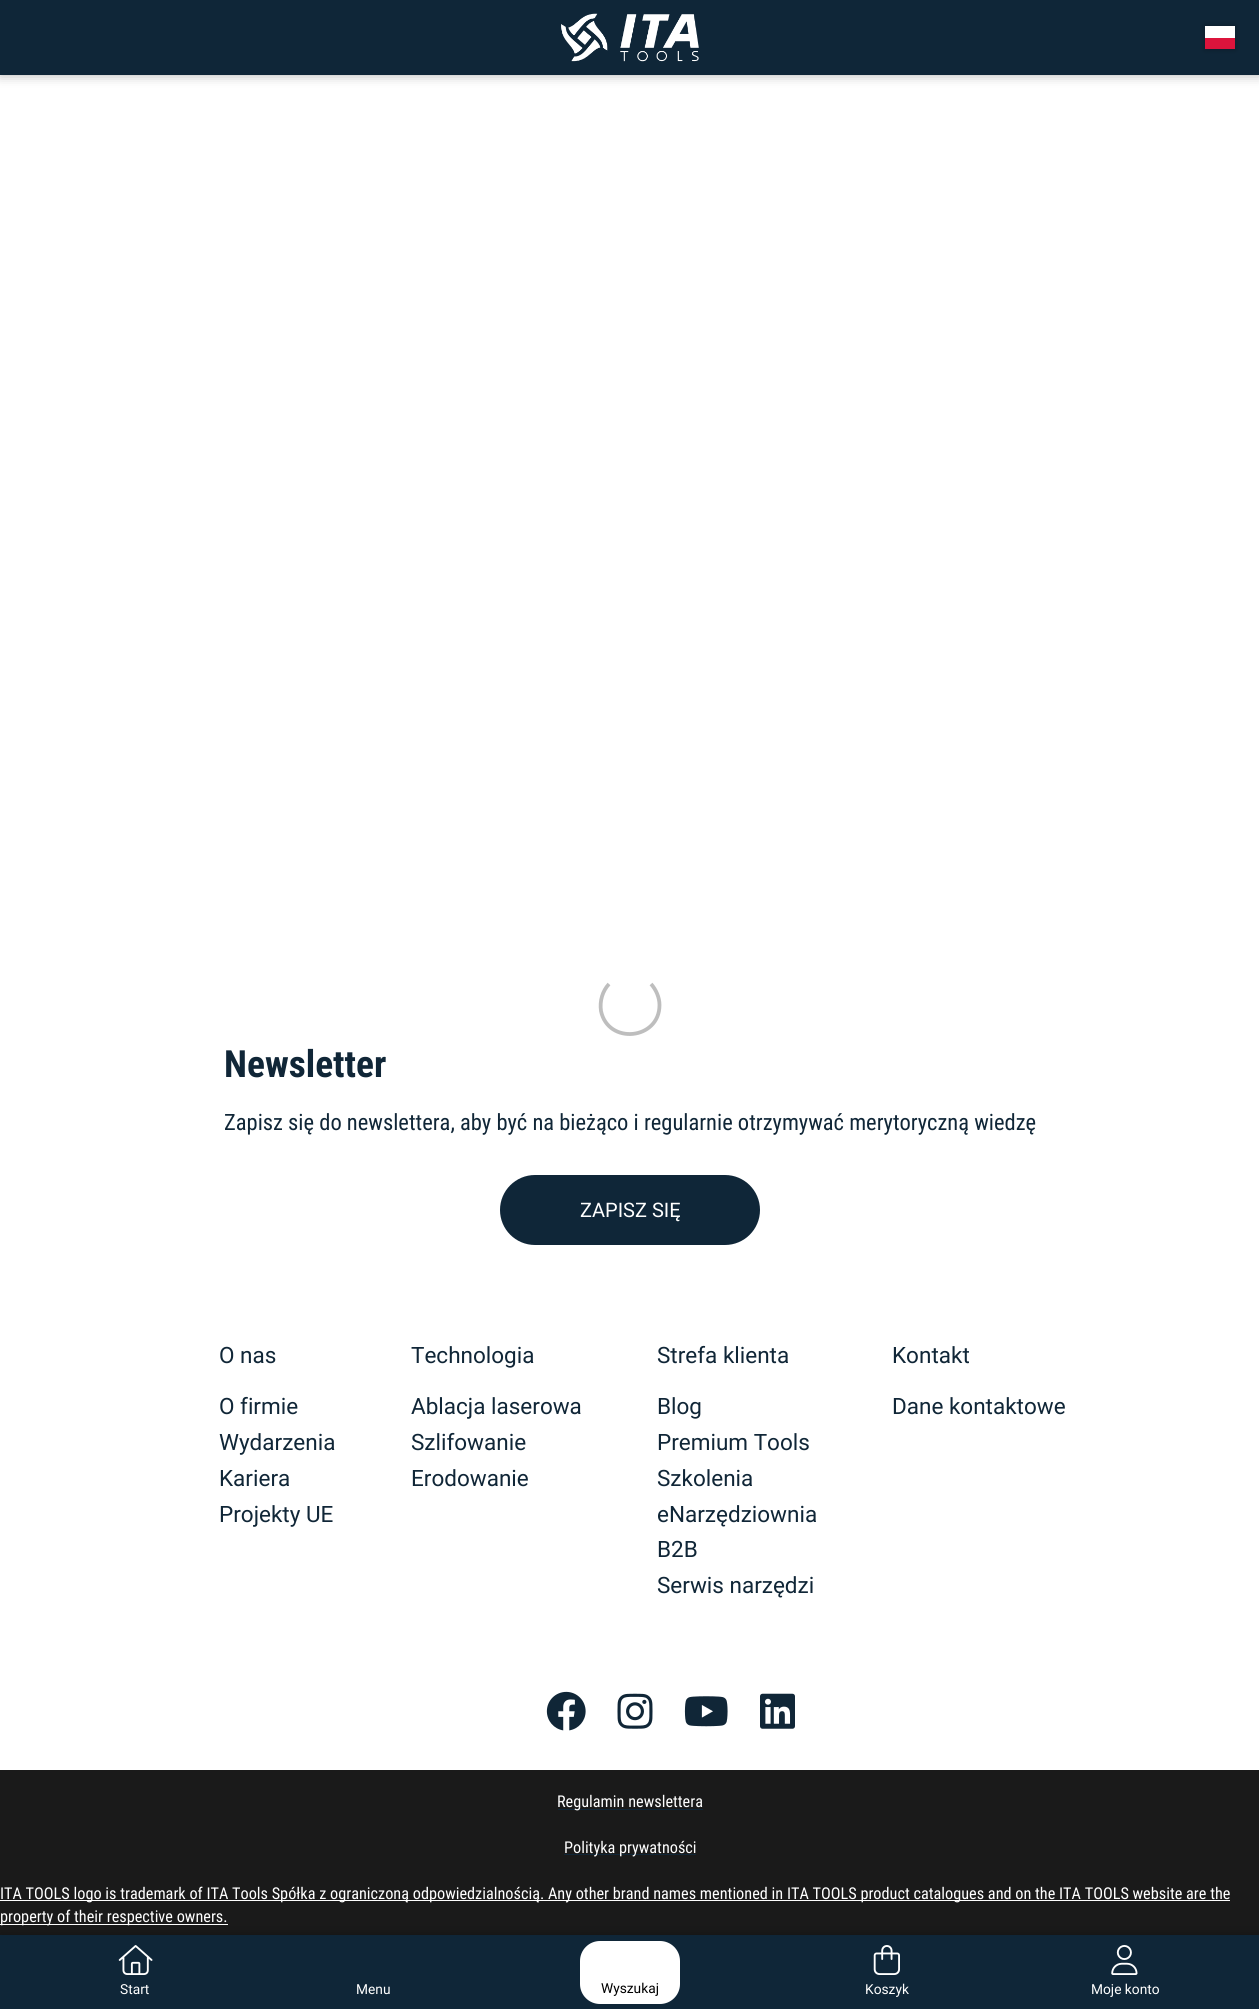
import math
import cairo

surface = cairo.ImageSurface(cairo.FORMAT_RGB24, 1259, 2009)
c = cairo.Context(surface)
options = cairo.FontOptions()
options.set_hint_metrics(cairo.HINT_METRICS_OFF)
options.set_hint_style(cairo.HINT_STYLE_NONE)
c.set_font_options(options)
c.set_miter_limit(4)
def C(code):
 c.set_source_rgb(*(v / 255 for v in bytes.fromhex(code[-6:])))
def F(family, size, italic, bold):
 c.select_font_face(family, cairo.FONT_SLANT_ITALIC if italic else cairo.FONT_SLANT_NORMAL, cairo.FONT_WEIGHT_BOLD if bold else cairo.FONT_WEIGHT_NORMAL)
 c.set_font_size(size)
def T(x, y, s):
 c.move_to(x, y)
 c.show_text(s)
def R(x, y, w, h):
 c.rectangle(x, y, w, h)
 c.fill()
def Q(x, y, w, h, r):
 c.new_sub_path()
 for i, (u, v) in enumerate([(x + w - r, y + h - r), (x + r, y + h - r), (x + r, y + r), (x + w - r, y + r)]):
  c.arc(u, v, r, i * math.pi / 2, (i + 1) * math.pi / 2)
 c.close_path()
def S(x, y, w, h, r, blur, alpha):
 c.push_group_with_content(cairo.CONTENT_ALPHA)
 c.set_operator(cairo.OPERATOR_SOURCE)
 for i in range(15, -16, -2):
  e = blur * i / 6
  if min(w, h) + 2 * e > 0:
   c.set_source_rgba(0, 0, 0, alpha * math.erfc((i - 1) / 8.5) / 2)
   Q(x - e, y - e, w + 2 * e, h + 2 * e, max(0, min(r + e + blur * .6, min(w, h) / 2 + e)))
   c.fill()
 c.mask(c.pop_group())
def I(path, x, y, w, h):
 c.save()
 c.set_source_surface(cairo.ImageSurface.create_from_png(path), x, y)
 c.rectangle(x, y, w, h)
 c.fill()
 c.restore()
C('ffffff')
c.paint()
C('000000')
S(0,0,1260,75,0,6,.3)
C('0f2638')
R(0,0,1259,75)
I('1.png',561,13,138,49)
C('000000')
S(1205,26,30,23,0,3,.3)
C('ffffff')
R(1205,26,30,12)
C('dc143c')
R(1205,38,30,11)
c.new_path()
c.move_to(651,984)
c.curve_to(656,989.5,659.5,997.5,659.5,1005)
c.curve_to(659.5,1040,608,1045,601,1011)
c.curve_to(599.5,1001,602.5,991,609,984)
C('bebebe')
c.set_line_width(3.8)
c.stroke()
F('Roboto Condensed',37.5,0,1)
C('102637')
T(224,1077,'Newsletter')
F('Roboto Condensed',22.5,0,0)
T(224,1130,'Zapisz się do newslettera, aby być na bieżąco i regularnie otrzymywać merytoryczną wiedzę')
C('0f2638')
Q(500,1175,260,70,35)
c.fill()
F('Roboto',20,0,0)
C('ffffff')
T(580,1217,'ZAPISZ SIĘ')
F('Roboto',22.5,0,0)
C('102637')
T(219,1363,'O nas')
T(219,1414,'O firmie')
T(219,1450,'Wydarzenia')
T(219,1486,'Kariera')
T(219,1522,'Projekty UE')
T(411,1363,'Technologia')
T(411,1414,'Ablacja laserowa')
T(411,1450,'Szlifowanie')
T(411,1486,'Erodowanie')
T(657,1363,'Strefa klienta')
T(657,1414,'Blog')
T(657,1450,'Premium Tools')
T(657,1486,'Szkolenia')
T(657,1522,'eNarzędziownia')
T(657,1557,'B2B')
T(657,1593,'Serwis narzędzi')
T(892,1363,'Kontakt')
T(892,1414,'Dane kontaktowe')
I('2.png',546,1691,40,40)
I('3.png',617,1693,36,36)
I('4.png',684,1696,44,31)
I('5.png',760,1693,35,36)
C('1a1a1a')
R(0,1770,1259,165)
C('102637')
R(558,1809,145,1)
F('Roboto Condensed',16.25,0,0)
C('ffffff')
T(557,1807,'Regulamin newslettera')
C('102637')
R(564,1854,132,1)
C('ffffff')
T(564,1853,'Polityka prywatności')
R(0,1900,1230,1)
T(0,1899,'ITA TOOLS logo is trademark of ITA Tools Spółka z ograniczoną odpowiedzialnością. Any other brand names mentioned in ITA TOOLS product catalogues and on the ITA TOOLS website are the')
R(0,1924,228,1)
T(0,1922,'property of their respective owners.')
C('000000')
S(0,1935,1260,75,0,6,.3)
C('0f2638')
R(0,1935,1259,74)
I('6.png',118,1945,35,30)
F('Roboto',13.75,0,0)
C('ffffff')
T(120,1994,'Start')
T(356,1994,'Menu')
Q(580,1941,100,63,20)
c.fill()
C('000000')
T(601,1993,'Wyszukaj')
I('7.png',873,1945,27,30)
C('ffffff')
T(865,1994,'Koszyk')
I('8.png',1111,1945,27,30)
T(1091,1994,'Moje konto')
surface.write_to_png('o.png')
